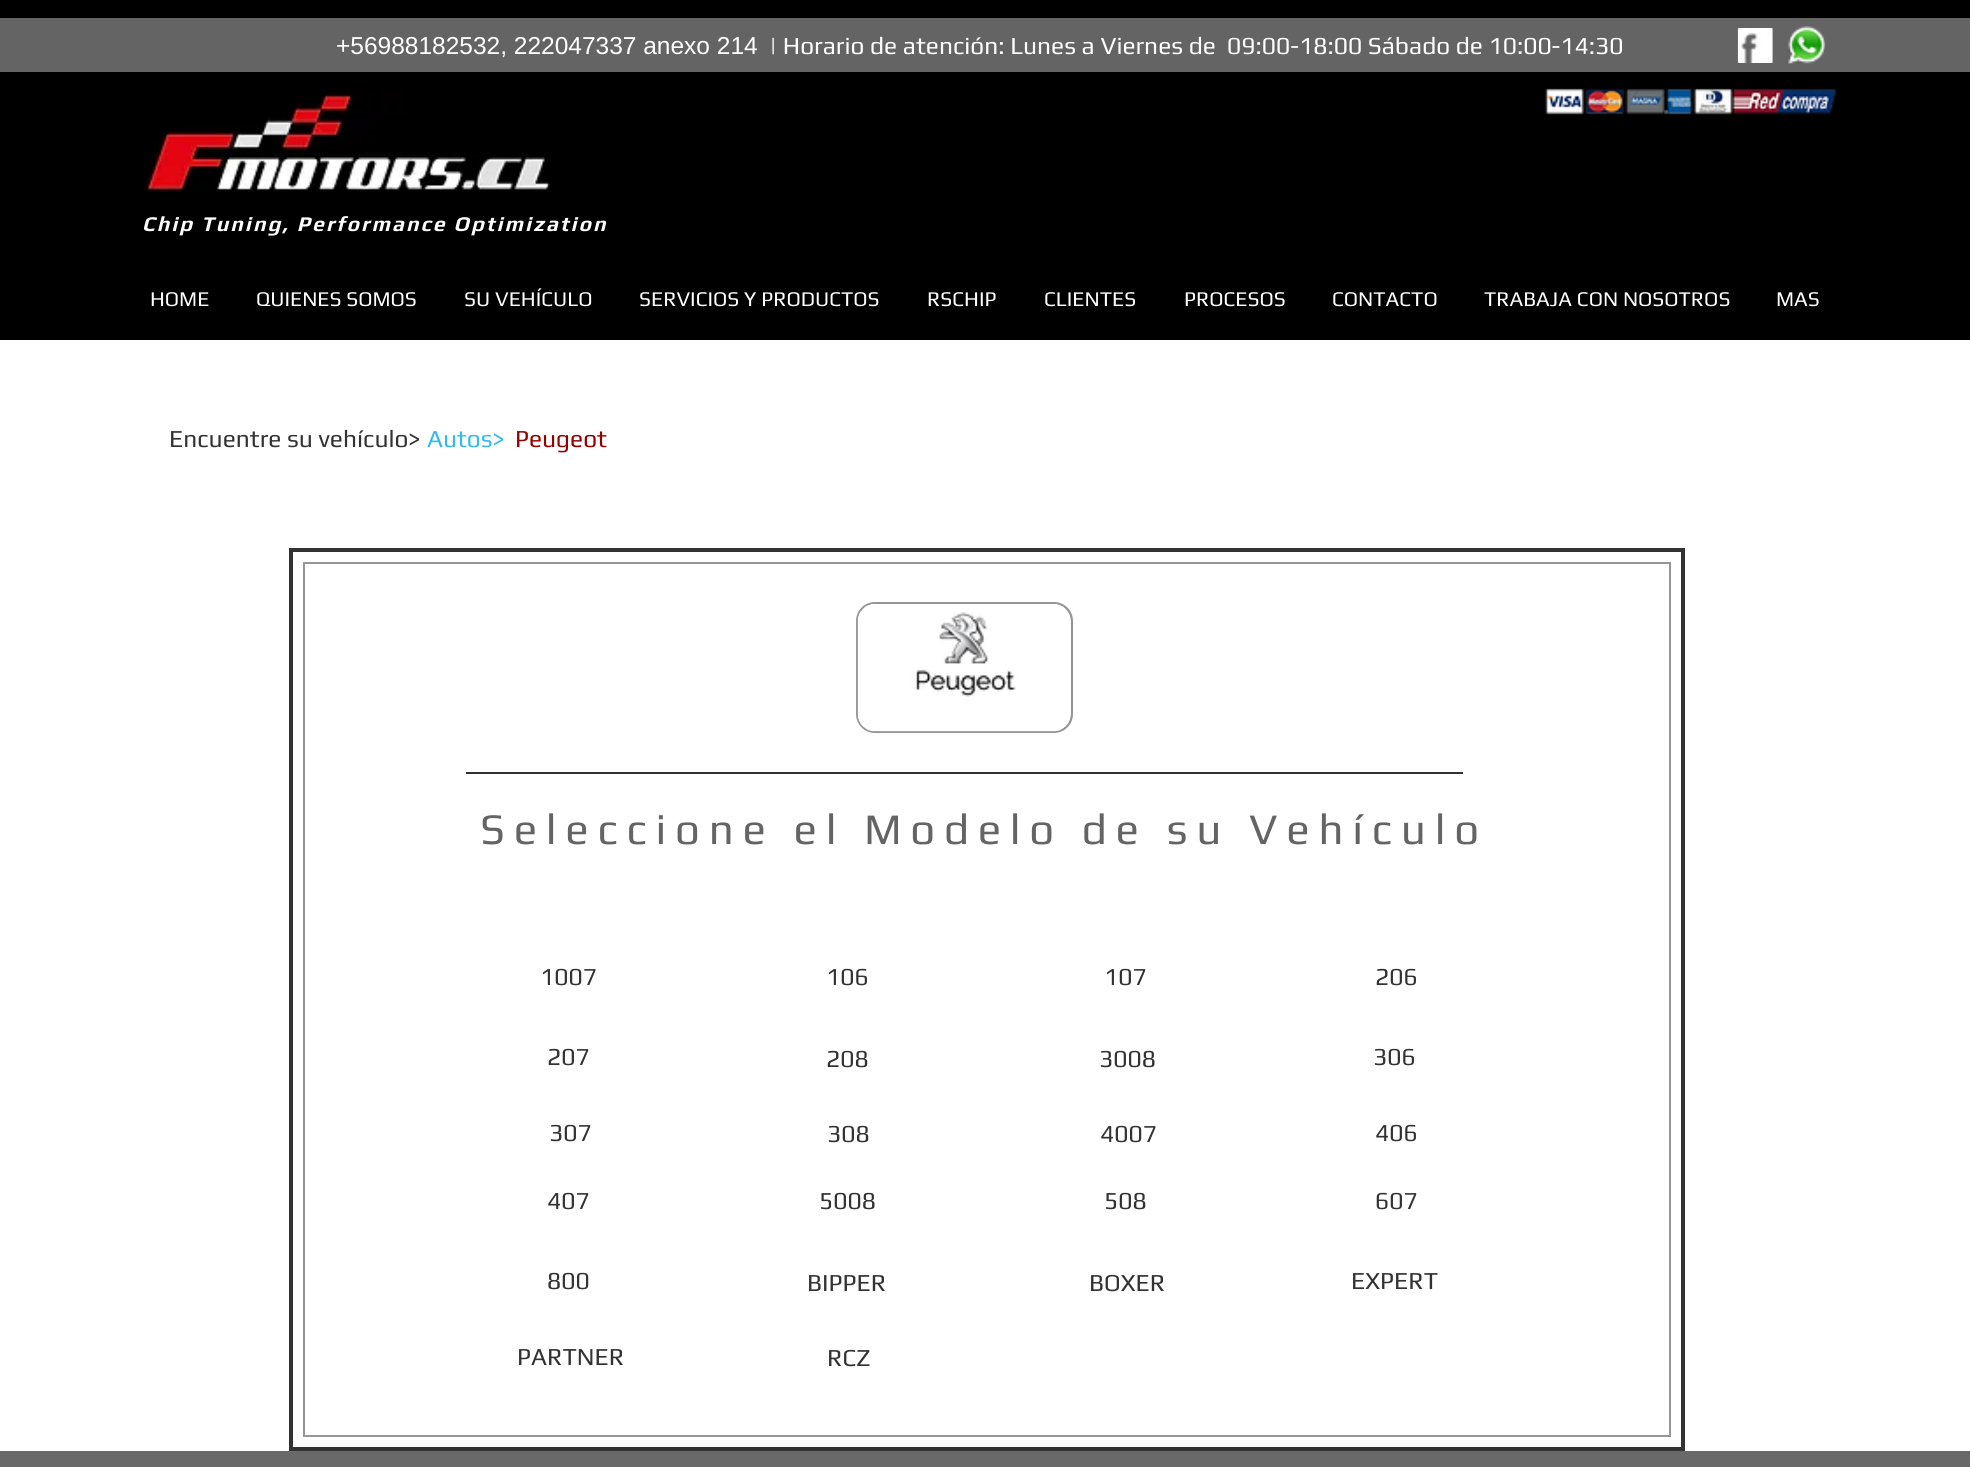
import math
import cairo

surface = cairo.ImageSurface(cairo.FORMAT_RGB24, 1970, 1467)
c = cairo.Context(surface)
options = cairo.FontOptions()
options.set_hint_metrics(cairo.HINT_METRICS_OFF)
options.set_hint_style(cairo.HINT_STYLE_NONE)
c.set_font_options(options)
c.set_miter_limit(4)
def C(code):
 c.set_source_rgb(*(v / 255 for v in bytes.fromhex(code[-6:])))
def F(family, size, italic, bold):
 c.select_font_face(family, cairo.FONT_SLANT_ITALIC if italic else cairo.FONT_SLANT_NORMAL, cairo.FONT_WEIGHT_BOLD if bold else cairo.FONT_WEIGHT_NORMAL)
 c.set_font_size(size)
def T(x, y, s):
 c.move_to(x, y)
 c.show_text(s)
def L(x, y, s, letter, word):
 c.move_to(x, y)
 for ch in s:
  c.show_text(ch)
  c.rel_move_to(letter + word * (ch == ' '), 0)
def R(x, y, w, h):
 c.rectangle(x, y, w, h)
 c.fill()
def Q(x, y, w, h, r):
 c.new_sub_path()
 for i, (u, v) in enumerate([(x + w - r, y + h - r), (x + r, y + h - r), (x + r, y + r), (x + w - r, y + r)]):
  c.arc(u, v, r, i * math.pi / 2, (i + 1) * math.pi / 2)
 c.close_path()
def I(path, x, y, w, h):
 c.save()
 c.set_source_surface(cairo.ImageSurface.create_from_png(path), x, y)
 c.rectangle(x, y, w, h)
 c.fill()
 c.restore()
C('ffffff')
c.paint()
C('000000')
R(0,0,1970,340)
C('646464')
R(0,18,1970,54)
F('Liberation Sans',24.5,0,0)
C('ffffff')
T(336,54,'+56988182532, 222047337 anexo 214')
F('Play',24.5,0,0)
T(769,54,'| Horario de atención: Lunes a Viernes de  09:00-18:00 Sábado de 10:00-14:30')
I('1.png',1737,28,36,35)
I('2.png',1787,26,39,38)
I('3.png',144,89,406,104)
I('4.png',1545,88,291,27)
F('Play',21,1,1)
L(142,231,'Chip Tuning, Performance Optimization',2.1,0)
F('Play',21,0,0)
T(150,306,'HOME')
T(256,306,'QUIENES SOMOS')
T(464,306,'SU VEHÍCULO')
T(639,306,'SERVICIOS Y PRODUCTOS')
T(927,306,'RSCHIP')
T(1044,306,'CLIENTES')
T(1184,306,'PROCESOS')
T(1332,306,'CONTACTO')
T(1484,306,'TRABAJA CON NOSOTROS')
T(1776,306,'MAS')
F('Play',24.5,0,0)
C('323232')
T(169,447,'Encuentre su vehículo>')
C('33b9f2')
T(427,447,'Autos>')
C('940000')
T(515,447,'Peugeot')
c.rectangle(291,550,1392,899)
C('323232')
c.set_line_width(4)
c.stroke()
c.rectangle(304,563,1366,873)
C('969696')
c.set_line_width(2)
c.stroke()
Q(857,603,215,129,18)
c.fill_preserve()
c.stroke()
I('5.png',857,604,214,128)
C('323232')
R(466,772,997,2)
F('Play',43.75,0,0)
C('646464')
L(480,844,'Seleccione el Modelo de su Vehículo',8.75,0)
F('Play',24.5,0,0)
C('323232')
T(540,985,'1007')
T(826,985,'106')
T(1104,985,'107')
T(1375,985,'206')
T(547,1065,'207')
T(826,1067,'208')
T(1099,1067,'3008')
T(1373,1065,'306')
T(549,1141,'307')
T(827,1142,'308')
T(1100,1142,'4007')
T(1375,1141,'406')
T(547,1209,'407')
T(819,1209,'5008')
T(1104,1209,'508')
T(1375,1209,'607')
T(547,1289,'800')
T(807,1291,'BIPPER')
T(1089,1291,'BOXER')
T(1351,1289,'EXPERT')
T(517,1365,'PARTNER')
T(827,1366,'RCZ')
C('696969')
R(0,1451,1970,16)
surface.write_to_png('o.png')
